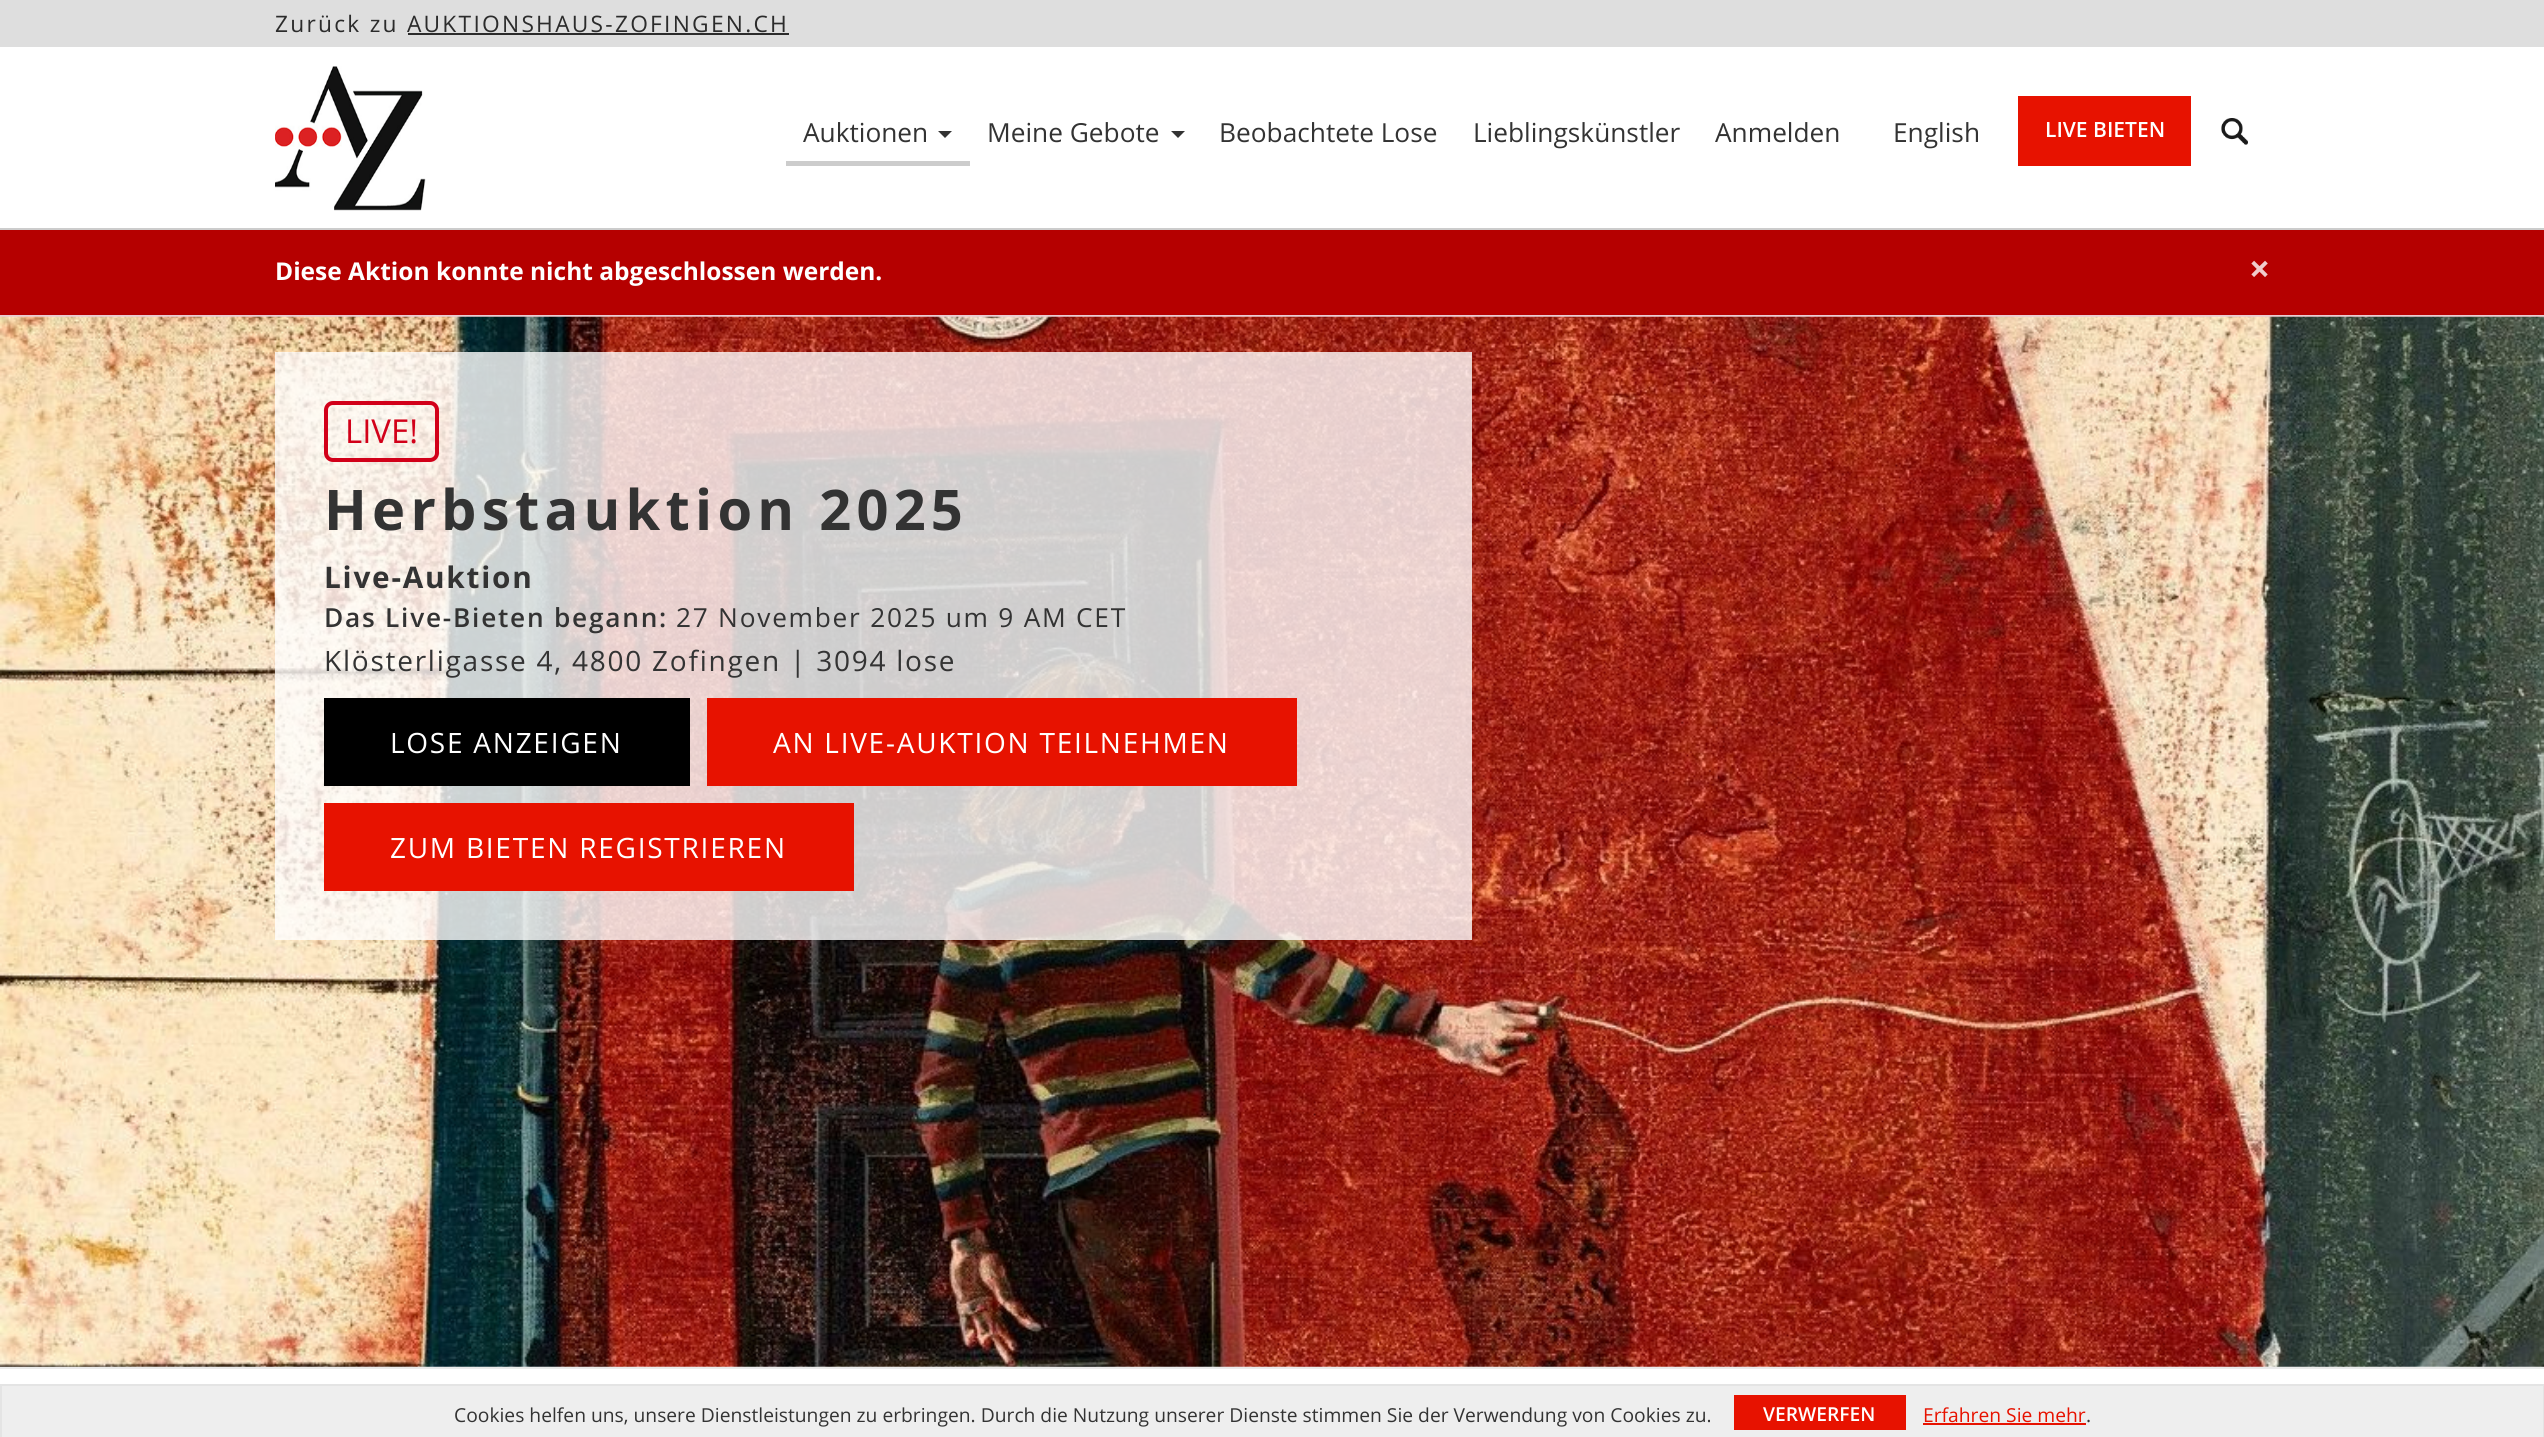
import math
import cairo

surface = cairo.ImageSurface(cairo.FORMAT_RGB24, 2544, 1437)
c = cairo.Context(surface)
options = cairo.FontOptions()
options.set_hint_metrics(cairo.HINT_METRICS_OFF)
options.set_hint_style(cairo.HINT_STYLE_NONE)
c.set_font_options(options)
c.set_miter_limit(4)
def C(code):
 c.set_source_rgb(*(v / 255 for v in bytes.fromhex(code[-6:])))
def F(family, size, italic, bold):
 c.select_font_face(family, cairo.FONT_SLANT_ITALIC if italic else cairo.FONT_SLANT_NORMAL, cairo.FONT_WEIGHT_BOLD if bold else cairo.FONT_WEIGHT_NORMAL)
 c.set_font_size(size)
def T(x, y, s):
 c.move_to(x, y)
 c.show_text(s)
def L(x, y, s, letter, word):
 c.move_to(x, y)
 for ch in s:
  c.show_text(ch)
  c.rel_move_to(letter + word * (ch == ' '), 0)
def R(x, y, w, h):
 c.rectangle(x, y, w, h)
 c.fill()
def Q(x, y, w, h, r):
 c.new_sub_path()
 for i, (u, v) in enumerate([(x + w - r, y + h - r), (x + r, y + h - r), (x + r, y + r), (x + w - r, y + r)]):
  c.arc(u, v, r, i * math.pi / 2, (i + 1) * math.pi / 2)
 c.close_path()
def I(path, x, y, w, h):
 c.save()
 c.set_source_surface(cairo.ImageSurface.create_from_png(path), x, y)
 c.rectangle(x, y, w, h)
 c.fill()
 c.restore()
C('ffffff')
c.paint()
C('dedede')
R(0,0,2544,47)
F('Open Sans',22.75,0,0)
C('2b2b2b')
L(275,32,'Zurück zu AUKTIONSHAUS-ZOFINGEN.CH',2.25,0)
R(408,33,381,2)
I('1.png',275,66,151,145)
C('cccccc')
R(786,161,184,5)
F('Open Sans',26.25,0,0)
C('333333')
T(803,142,'Auktionen')
c.new_path()
c.move_to(938,131)
c.line_to(952,131)
c.line_to(945,138)
c.close_path()
c.fill()
T(987,142,'Meine Gebote')
c.new_path()
c.move_to(1171,131)
c.line_to(1185,131)
c.line_to(1178,138)
c.close_path()
c.fill()
T(1219,142,'Beobachtete Lose')
T(1473,142,'Lieblingskünstler')
T(1715,142,'Anmelden')
T(1893,142,'English')
C('e71200')
R(2018,96,173,70)
F('Open Sans SemiBold',21,0,0)
C('ffffff')
T(2045,137,'LIVE BIETEN')
I('2.png',2221,118,27,27)
C('cccccc')
R(0,228,2544,2)
C('b50000')
R(0,230,2544,85)
C('ebccd1')
R(0,315,2544,2)
F('Open Sans',24.5,0,1)
C('ffffff')
T(275,280,'Diese Aktion konnte nicht abgeschlossen werden.')
F('Open Sans',37,0,1)
C('f0cccc')
T(2249,282,'×')
I('3.png',0,316,2544,1051)
c.set_source_rgba(1,1,1,0.8)
R(275,352,1197,588)
Q(326,403,111,57,7)
C('d20019')
c.set_line_width(4)
c.stroke()
F('Open Sans',33,0,0)
T(345,443,'LIVE!')
F('Open Sans',56,0,1)
C('333333')
L(324,530,'Herbstauktion 2025',5.25,0)
F('Open Sans',29.75,0,1)
L(324,588,'Live-Auktion',1.75,0)
F('Open Sans SemiBold',26.25,0,0)
L(324,627,'Das Live-Bieten begann:',1.75,0)
F('Open Sans',26.25,0,0)
L(676,627,'27 November 2025 um 9 AM CET',1.75,0)
F('Open Sans',28,0,0)
L(324,671,'Klösterligasse 4, 4800 Zofingen | 3094 lose',1.75,0)
C('000000')
R(324,698,366,88)
C('ffffff')
L(390,753,'LOSE ANZEIGEN',1.75,0)
C('e71200')
R(707,698,590,88)
C('ffffff')
L(773,753,'AN LIVE-AUKTION TEILNEHMEN',1.75,0)
C('e71200')
R(324,803,530,88)
C('ffffff')
L(390,858,'ZUM BIETEN REGISTRIEREN',1.75,0)
C('ebebeb')
R(0,1367,2544,2)
C('eeeeee')
R(2,1386,2541,51)
C('e4e4e4')
R(0,1384,2544,2)
R(2543,1384,1,53)
R(0,1384,2,53)
F('Open Sans',19.25,0,0)
C('333333')
T(454,1422,'Cookies helfen uns, unsere Dienstleistungen zu erbringen. Durch die Nutzung unserer Dienste stimmen Sie der Verwendung von Cookies zu.')
C('e71200')
R(1734,1395,172,35)
F('Open Sans SemiBold',19.25,0,0)
C('ffffff')
T(1763,1421,'VERWERFEN')
F('Open Sans',19.25,0,0)
C('e71200')
T(1923,1422,'Erfahren Sie mehr')
R(1923,1423,163,2)
C('333333')
T(2086,1422,'.')
surface.write_to_png('o.png')
